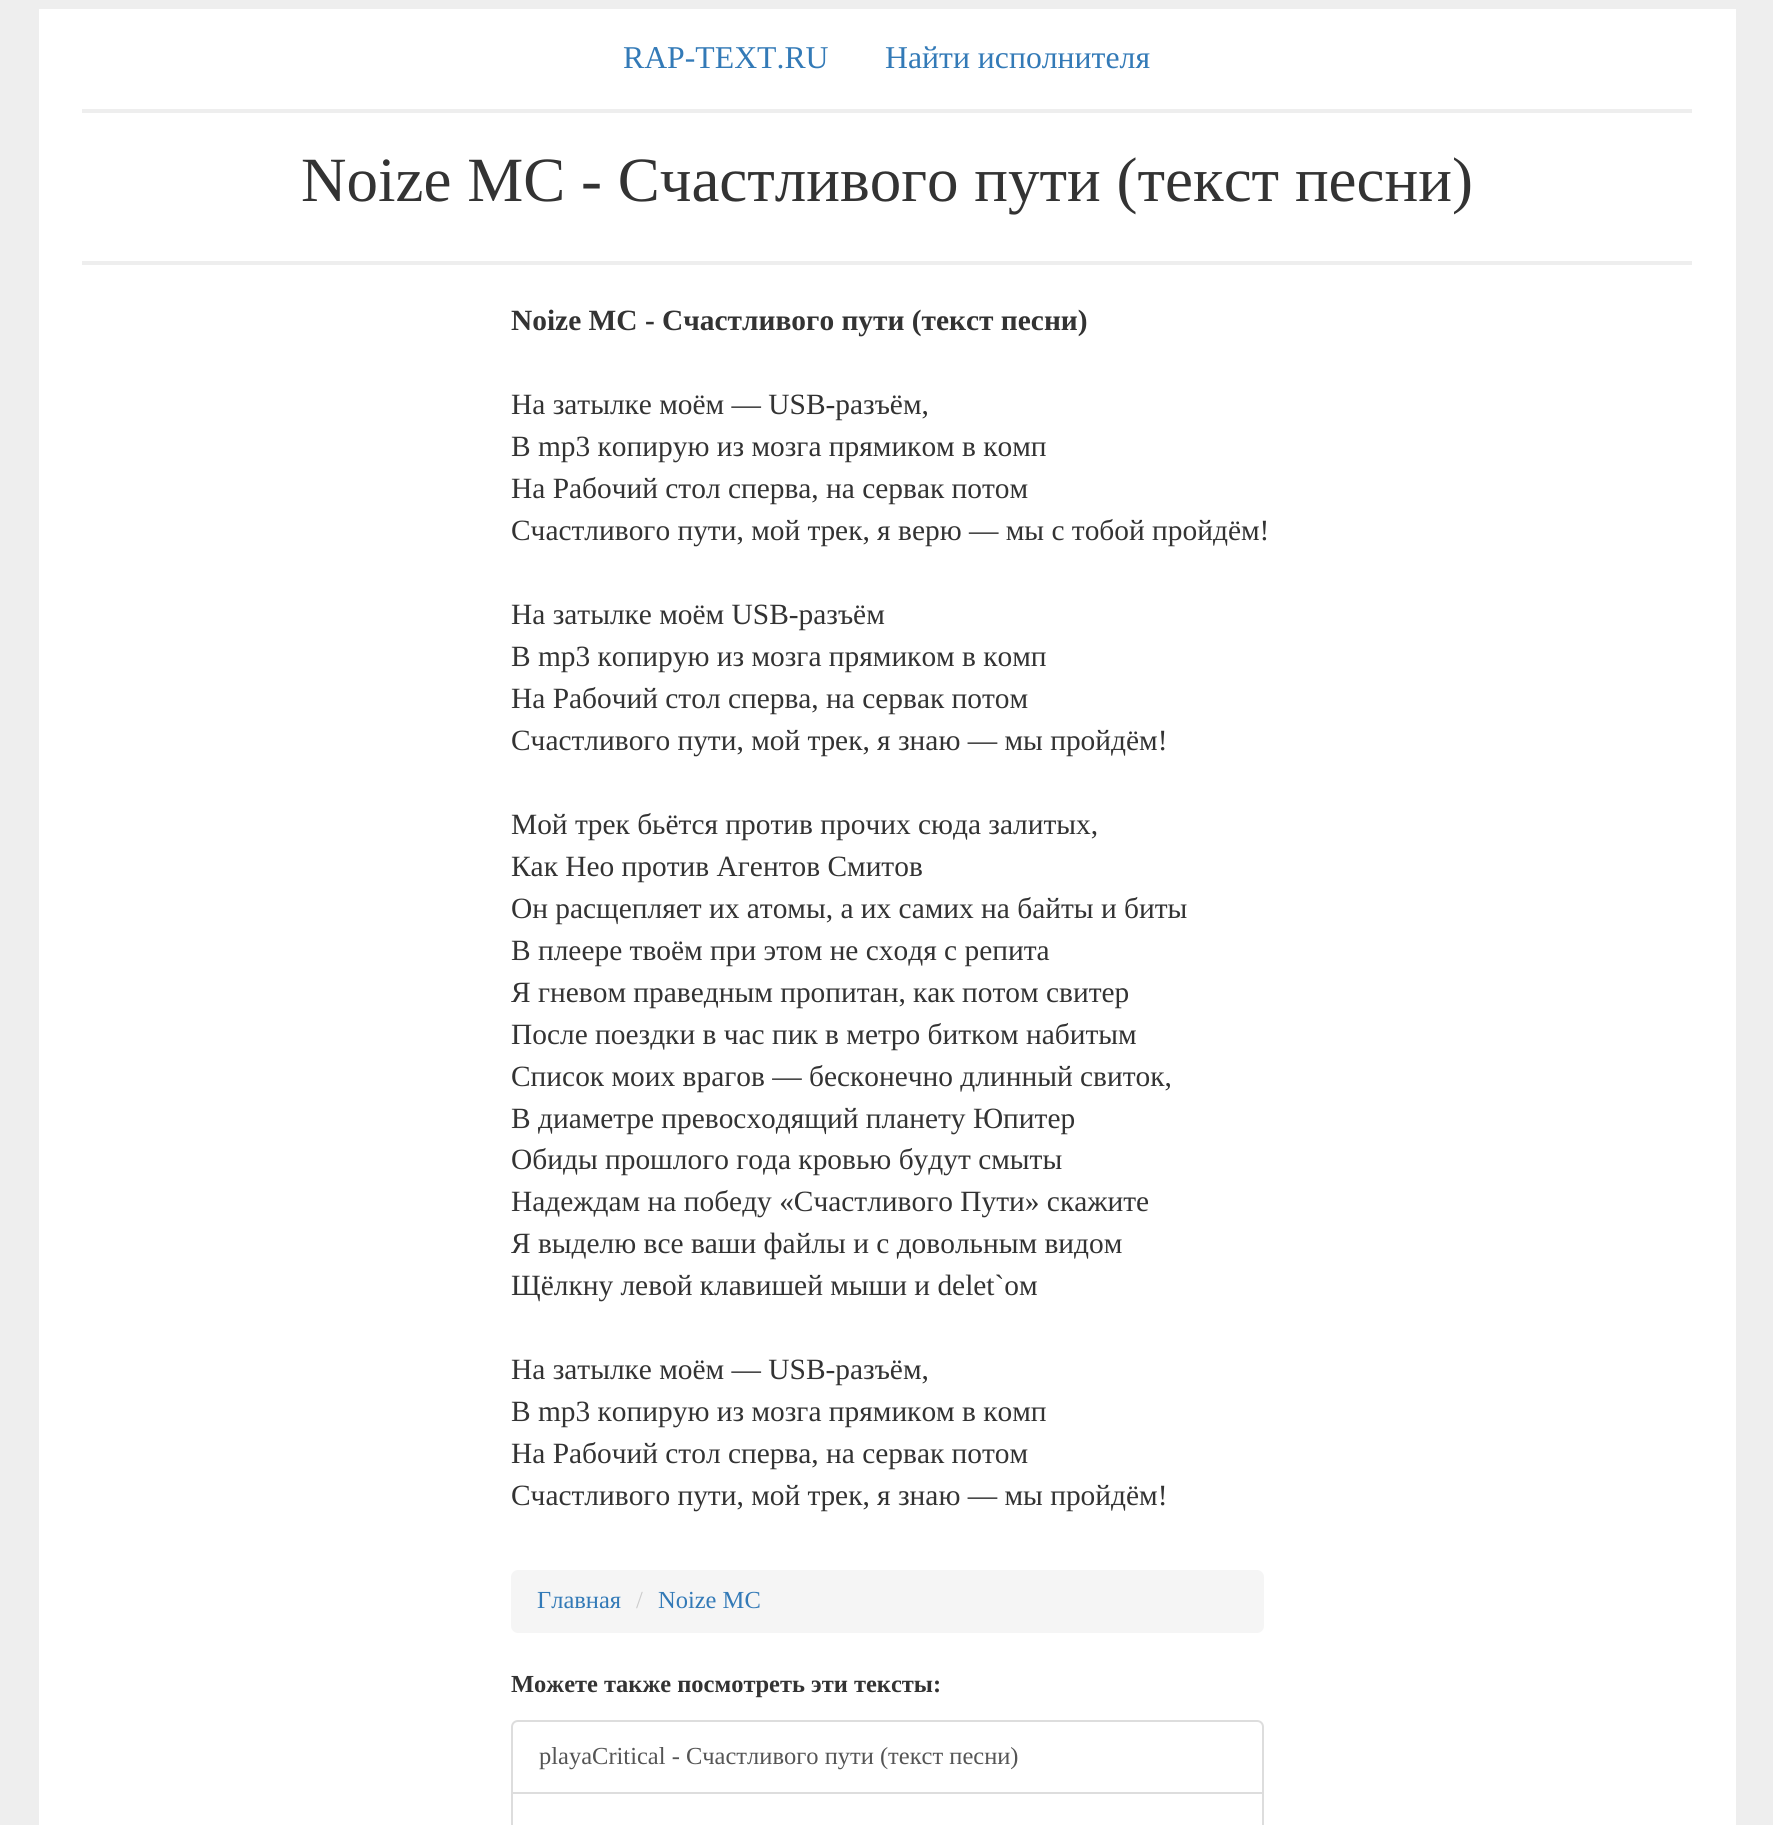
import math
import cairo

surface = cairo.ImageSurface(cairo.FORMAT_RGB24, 1773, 1825)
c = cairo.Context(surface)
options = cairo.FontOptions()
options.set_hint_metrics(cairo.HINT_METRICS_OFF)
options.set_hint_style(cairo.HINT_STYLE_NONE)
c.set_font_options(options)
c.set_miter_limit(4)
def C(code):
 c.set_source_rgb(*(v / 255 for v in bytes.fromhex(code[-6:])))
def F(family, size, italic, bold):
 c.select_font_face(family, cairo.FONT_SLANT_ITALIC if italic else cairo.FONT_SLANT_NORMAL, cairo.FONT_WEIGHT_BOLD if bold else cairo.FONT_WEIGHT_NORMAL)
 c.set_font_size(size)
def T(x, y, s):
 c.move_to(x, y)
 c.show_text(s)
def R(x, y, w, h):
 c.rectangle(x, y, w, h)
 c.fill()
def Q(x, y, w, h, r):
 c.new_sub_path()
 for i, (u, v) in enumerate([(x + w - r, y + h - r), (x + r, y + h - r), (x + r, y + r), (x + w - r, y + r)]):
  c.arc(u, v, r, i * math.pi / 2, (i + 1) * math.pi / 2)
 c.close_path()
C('eeeeee')
c.paint()
C('ffffff')
R(39,9,1697,1816)
C('eeeeee')
R(82,109,1610,4)
F('Liberation Serif',31.75,0,0)
C('337ab7')
T(623,68,'RAP-TEXT.RU')
T(885,68,'Найти исполнителя')
C('eeeeee')
R(82,261,1610,4)
F('Liberation Serif',63,0,0)
C('333333')
T(301,201,'Noize MC - Счастливого пути (текст песни)')
F('Liberation Serif',29.4,0,1)
T(511,330,'Noize MC - Счастливого пути (текст песни)')
F('Liberation Serif',29.4,0,0)
T(511,414,'На затылке моём — USB-разъём,')
T(511,456,'В mp3 копирую из мозга прямиком в комп')
T(511,498,'На Рабочий стол сперва, на сервак потом')
T(511,540,'Счастливого пути, мой трек, я верю — мы с тобой пройдём!')
T(511,624,'На затылке моём USB-разъём')
T(511,666,'В mp3 копирую из мозга прямиком в комп')
T(511,708,'На Рабочий стол сперва, на сервак потом')
T(511,750,'Счастливого пути, мой трек, я знаю — мы пройдём!')
T(511,834,'Мой трек бьётся против прочих сюда залитых,')
T(511,876,'Как Нео против Агентов Смитов')
T(511,918,'Он расщепляет их атомы, а их самих на байты и биты')
T(511,960,'В плеере твоём при этом не сходя с репита')
T(511,1002,'Я гневом праведным пропитан, как потом свитер')
T(511,1044,'После поездки в час пик в метро битком набитым')
T(511,1086,'Список моих врагов — бесконечно длинный свиток,')
T(511,1128,'В диаметре превосходящий планету Юпитер')
T(511,1169,'Обиды прошлого года кровью будут смыты')
T(511,1211,'Надеждам на победу «Счастливого Пути» скажите')
T(511,1253,'Я выделю все ваши файлы и с довольным видом')
T(511,1295,'Щёлкну левой клавишей мыши и delet`ом')
T(511,1379,'На затылке моём — USB-разъём,')
T(511,1421,'В mp3 копирую из мозга прямиком в комп')
T(511,1463,'На Рабочий стол сперва, на сервак потом')
T(511,1505,'Счастливого пути, мой трек, я знаю — мы пройдём!')
C('f5f5f5')
Q(511,1570,753,63,7)
c.fill()
F('Liberation Serif',24.5,0,0)
C('337ab7')
T(537,1608,'Главная')
C('cccccc')
T(636,1608,'/')
C('337ab7')
T(658,1608,'Noize MC')
F('Liberation Serif',24.5,0,1)
C('333333')
T(511,1692,'Можете также посмотреть эти тексты:')
c.new_path()
c.move_to(518,1721)
c.line_to(1257,1721)
c.curve_to(1260.5,1721,1263,1723.5,1263,1727)
c.line_to(1263,1793)
c.line_to(512,1793)
c.line_to(512,1727)
c.curve_to(512,1723.5,514.5,1721,518,1721)
c.close_path()
C('dddddd')
c.stroke()
F('Liberation Serif',24.5,0,0)
C('555555')
T(539,1764,'playaCritical - Счастливого пути (текст песни)')
c.rectangle(512,1793,751,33)
C('dddddd')
c.stroke()
surface.write_to_png('o.png')
